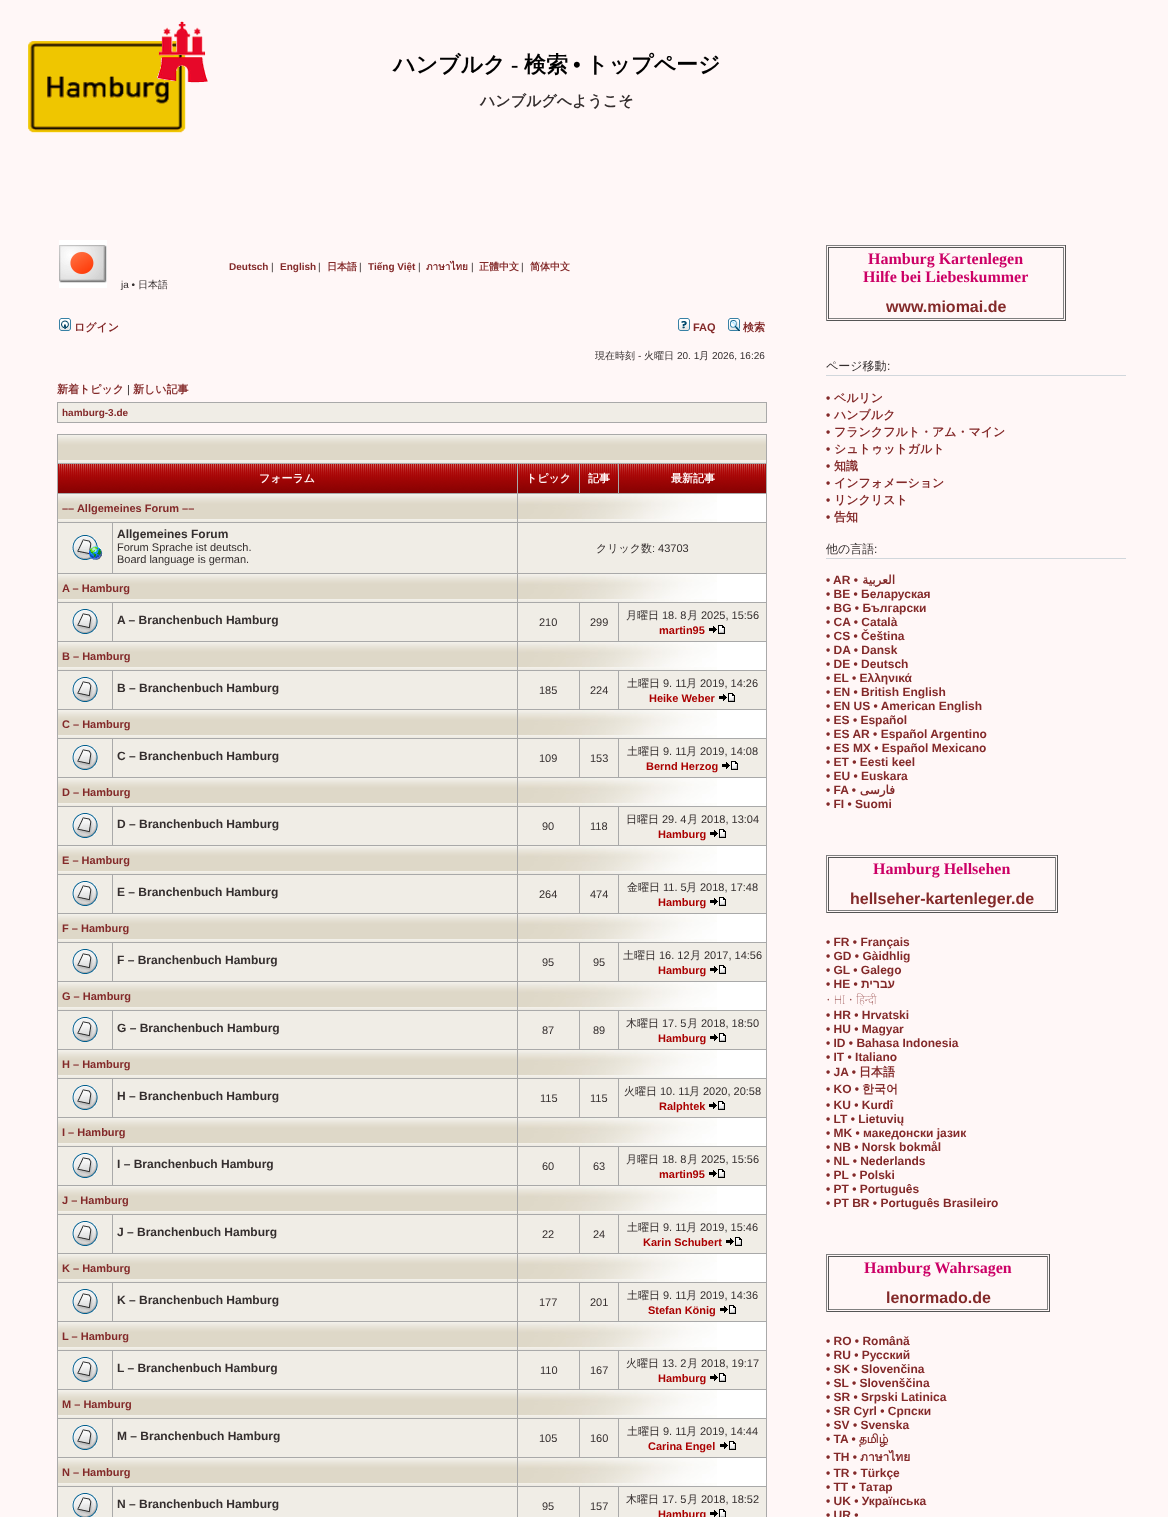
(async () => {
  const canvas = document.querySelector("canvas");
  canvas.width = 1168;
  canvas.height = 1517;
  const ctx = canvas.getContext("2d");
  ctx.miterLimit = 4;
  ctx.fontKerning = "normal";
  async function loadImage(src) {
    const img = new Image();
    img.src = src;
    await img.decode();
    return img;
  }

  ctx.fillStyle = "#fff7f7";
  ctx.fillRect(0, 0, 1168, 1517);
  ctx.drawImage(await loadImage("img/1.png"), 28, 21, 180, 112);
  ctx.drawImage(await loadImage("img/2.png"), 59, 240, 48, 48);
  ctx.drawImage(await loadImage("img/3.png"), 59, 318, 12, 13);
  ctx.drawImage(await loadImage("img/4.png"), 678, 318, 12, 13);
  ctx.drawImage(await loadImage("img/5.png"), 728, 318, 12, 13);
  for (const [x, y, w, h, color] of [
    [57, 402, 710, 21, "#a9a9a9"],
    [58, 403, 708, 19, "#f0ede6"],
    [57, 434, 710, 1083, "#a9a9a9"],
  ]) {
    ctx.fillStyle = color;
    ctx.fillRect(x, y, w, h);
  }
  ctx.drawImage(await loadImage("img/6.png"), 58, 435, 708, 28);
  ctx.drawImage(await loadImage("img/7.png"), 58, 464, 459, 29);
  ctx.drawImage(await loadImage("img/8.png"), 518, 464, 61, 29);
  ctx.drawImage(await loadImage("img/9.png"), 580, 464, 38, 29);
  ctx.drawImage(await loadImage("img/10.png"), 619, 464, 147, 29);
  ctx.drawImage(await loadImage("img/11.png"), 58, 494, 459, 28);
  ctx.fillStyle = "#ffffff";
  ctx.fillRect(717, 494, 49, 28);
  ctx.drawImage(await loadImage("img/12.png"), 518, 494, 199, 28);
  ctx.fillStyle = "#f0ede6";
  ctx.fillRect(58, 523, 54, 50);
  ctx.drawImage(await loadImage("img/13.png"), 72, 535, 31, 25);
  ctx.fillRect(113, 523, 404, 50);
  ctx.fillRect(518, 523, 248, 50);
  ctx.drawImage(await loadImage("img/11.png"), 58, 574, 459, 28);
  ctx.fillStyle = "#ffffff";
  ctx.fillRect(717, 574, 49, 28);
  ctx.drawImage(await loadImage("img/12.png"), 518, 574, 199, 28);
  ctx.fillStyle = "#f0ede6";
  ctx.fillRect(58, 603, 54, 38);
  ctx.drawImage(await loadImage("img/14.png"), 72, 609, 26, 25);
  for (const [x, y, w, h, color] of [
    [113, 603, 404, 38, "#f0ede6"],
    [518, 603, 61, 38, "#f0ede6"],
    [580, 603, 38, 38, "#f0ede6"],
    [619, 603, 147, 38, "#f0ede6"],
  ]) {
    ctx.fillStyle = color;
    ctx.fillRect(x, y, w, h);
  }
  ctx.drawImage(await loadImage("img/15.png"), 709, 625, 16, 9);
  ctx.drawImage(await loadImage("img/11.png"), 58, 642, 459, 28);
  ctx.fillStyle = "#ffffff";
  ctx.fillRect(717, 642, 49, 28);
  ctx.drawImage(await loadImage("img/12.png"), 518, 642, 199, 28);
  ctx.fillStyle = "#f0ede6";
  ctx.fillRect(58, 671, 54, 38);
  ctx.drawImage(await loadImage("img/14.png"), 72, 677, 26, 25);
  for (const [x, y, w, h, color] of [
    [113, 671, 404, 38, "#f0ede6"],
    [518, 671, 61, 38, "#f0ede6"],
    [580, 671, 38, 38, "#f0ede6"],
    [619, 671, 147, 38, "#f0ede6"],
  ]) {
    ctx.fillStyle = color;
    ctx.fillRect(x, y, w, h);
  }
  ctx.drawImage(await loadImage("img/15.png"), 719, 693, 16, 9);
  ctx.drawImage(await loadImage("img/11.png"), 58, 710, 459, 28);
  ctx.fillStyle = "#ffffff";
  ctx.fillRect(717, 710, 49, 28);
  ctx.drawImage(await loadImage("img/12.png"), 518, 710, 199, 28);
  ctx.fillStyle = "#f0ede6";
  ctx.fillRect(58, 739, 54, 38);
  ctx.drawImage(await loadImage("img/14.png"), 72, 745, 26, 25);
  for (const [x, y, w, h, color] of [
    [113, 739, 404, 38, "#f0ede6"],
    [518, 739, 61, 38, "#f0ede6"],
    [580, 739, 38, 38, "#f0ede6"],
    [619, 739, 147, 38, "#f0ede6"],
  ]) {
    ctx.fillStyle = color;
    ctx.fillRect(x, y, w, h);
  }
  ctx.drawImage(await loadImage("img/15.png"), 722, 761, 16, 9);
  ctx.drawImage(await loadImage("img/11.png"), 58, 778, 459, 28);
  ctx.fillStyle = "#ffffff";
  ctx.fillRect(717, 778, 49, 28);
  ctx.drawImage(await loadImage("img/12.png"), 518, 778, 199, 28);
  ctx.fillStyle = "#f0ede6";
  ctx.fillRect(58, 807, 54, 38);
  ctx.drawImage(await loadImage("img/14.png"), 72, 813, 26, 25);
  for (const [x, y, w, h, color] of [
    [113, 807, 404, 38, "#f0ede6"],
    [518, 807, 61, 38, "#f0ede6"],
    [580, 807, 38, 38, "#f0ede6"],
    [619, 807, 147, 38, "#f0ede6"],
  ]) {
    ctx.fillStyle = color;
    ctx.fillRect(x, y, w, h);
  }
  ctx.drawImage(await loadImage("img/15.png"), 710, 829, 16, 9);
  ctx.drawImage(await loadImage("img/11.png"), 58, 846, 459, 28);
  ctx.fillStyle = "#ffffff";
  ctx.fillRect(717, 846, 49, 28);
  ctx.drawImage(await loadImage("img/12.png"), 518, 846, 199, 28);
  ctx.fillStyle = "#f0ede6";
  ctx.fillRect(58, 875, 54, 38);
  ctx.drawImage(await loadImage("img/14.png"), 72, 881, 26, 25);
  for (const [x, y, w, h, color] of [
    [113, 875, 404, 38, "#f0ede6"],
    [518, 875, 61, 38, "#f0ede6"],
    [580, 875, 38, 38, "#f0ede6"],
    [619, 875, 147, 38, "#f0ede6"],
  ]) {
    ctx.fillStyle = color;
    ctx.fillRect(x, y, w, h);
  }
  ctx.drawImage(await loadImage("img/15.png"), 710, 897, 16, 9);
  ctx.drawImage(await loadImage("img/11.png"), 58, 914, 459, 28);
  ctx.fillStyle = "#ffffff";
  ctx.fillRect(717, 914, 49, 28);
  ctx.drawImage(await loadImage("img/12.png"), 518, 914, 199, 28);
  ctx.fillStyle = "#f0ede6";
  ctx.fillRect(58, 943, 54, 38);
  ctx.drawImage(await loadImage("img/14.png"), 72, 949, 26, 25);
  for (const [x, y, w, h, color] of [
    [113, 943, 404, 38, "#f0ede6"],
    [518, 943, 61, 38, "#f0ede6"],
    [580, 943, 38, 38, "#f0ede6"],
    [619, 943, 147, 38, "#f0ede6"],
  ]) {
    ctx.fillStyle = color;
    ctx.fillRect(x, y, w, h);
  }
  ctx.drawImage(await loadImage("img/15.png"), 710, 965, 16, 9);
  ctx.drawImage(await loadImage("img/11.png"), 58, 982, 459, 28);
  ctx.fillStyle = "#ffffff";
  ctx.fillRect(717, 982, 49, 28);
  ctx.drawImage(await loadImage("img/12.png"), 518, 982, 199, 28);
  ctx.fillStyle = "#f0ede6";
  ctx.fillRect(58, 1011, 54, 38);
  ctx.drawImage(await loadImage("img/14.png"), 72, 1017, 26, 25);
  for (const [x, y, w, h, color] of [
    [113, 1011, 404, 38, "#f0ede6"],
    [518, 1011, 61, 38, "#f0ede6"],
    [580, 1011, 38, 38, "#f0ede6"],
    [619, 1011, 147, 38, "#f0ede6"],
  ]) {
    ctx.fillStyle = color;
    ctx.fillRect(x, y, w, h);
  }
  ctx.drawImage(await loadImage("img/15.png"), 710, 1033, 16, 9);
  ctx.drawImage(await loadImage("img/11.png"), 58, 1050, 459, 28);
  ctx.fillStyle = "#ffffff";
  ctx.fillRect(717, 1050, 49, 28);
  ctx.drawImage(await loadImage("img/12.png"), 518, 1050, 199, 28);
  ctx.fillStyle = "#f0ede6";
  ctx.fillRect(58, 1079, 54, 38);
  ctx.drawImage(await loadImage("img/14.png"), 72, 1085, 26, 25);
  for (const [x, y, w, h, color] of [
    [113, 1079, 404, 38, "#f0ede6"],
    [518, 1079, 61, 38, "#f0ede6"],
    [580, 1079, 38, 38, "#f0ede6"],
    [619, 1079, 147, 38, "#f0ede6"],
  ]) {
    ctx.fillStyle = color;
    ctx.fillRect(x, y, w, h);
  }
  ctx.drawImage(await loadImage("img/15.png"), 709, 1101, 16, 9);
  ctx.drawImage(await loadImage("img/11.png"), 58, 1118, 459, 28);
  ctx.fillStyle = "#ffffff";
  ctx.fillRect(717, 1118, 49, 28);
  ctx.drawImage(await loadImage("img/12.png"), 518, 1118, 199, 28);
  ctx.fillStyle = "#f0ede6";
  ctx.fillRect(58, 1147, 54, 38);
  ctx.drawImage(await loadImage("img/14.png"), 72, 1153, 26, 25);
  for (const [x, y, w, h, color] of [
    [113, 1147, 404, 38, "#f0ede6"],
    [518, 1147, 61, 38, "#f0ede6"],
    [580, 1147, 38, 38, "#f0ede6"],
    [619, 1147, 147, 38, "#f0ede6"],
  ]) {
    ctx.fillStyle = color;
    ctx.fillRect(x, y, w, h);
  }
  ctx.drawImage(await loadImage("img/15.png"), 709, 1169, 16, 9);
  ctx.drawImage(await loadImage("img/11.png"), 58, 1186, 459, 28);
  ctx.fillStyle = "#ffffff";
  ctx.fillRect(717, 1186, 49, 28);
  ctx.drawImage(await loadImage("img/12.png"), 518, 1186, 199, 28);
  ctx.fillStyle = "#f0ede6";
  ctx.fillRect(58, 1215, 54, 38);
  ctx.drawImage(await loadImage("img/14.png"), 72, 1221, 26, 25);
  for (const [x, y, w, h, color] of [
    [113, 1215, 404, 38, "#f0ede6"],
    [518, 1215, 61, 38, "#f0ede6"],
    [580, 1215, 38, 38, "#f0ede6"],
    [619, 1215, 147, 38, "#f0ede6"],
  ]) {
    ctx.fillStyle = color;
    ctx.fillRect(x, y, w, h);
  }
  ctx.drawImage(await loadImage("img/15.png"), 726, 1237, 16, 9);
  ctx.drawImage(await loadImage("img/11.png"), 58, 1254, 459, 28);
  ctx.fillStyle = "#ffffff";
  ctx.fillRect(717, 1254, 49, 28);
  ctx.drawImage(await loadImage("img/12.png"), 518, 1254, 199, 28);
  ctx.fillStyle = "#f0ede6";
  ctx.fillRect(58, 1283, 54, 38);
  ctx.drawImage(await loadImage("img/14.png"), 72, 1289, 26, 25);
  for (const [x, y, w, h, color] of [
    [113, 1283, 404, 38, "#f0ede6"],
    [518, 1283, 61, 38, "#f0ede6"],
    [580, 1283, 38, 38, "#f0ede6"],
    [619, 1283, 147, 38, "#f0ede6"],
  ]) {
    ctx.fillStyle = color;
    ctx.fillRect(x, y, w, h);
  }
  ctx.drawImage(await loadImage("img/15.png"), 720, 1305, 16, 9);
  ctx.drawImage(await loadImage("img/11.png"), 58, 1322, 459, 28);
  ctx.fillStyle = "#ffffff";
  ctx.fillRect(717, 1322, 49, 28);
  ctx.drawImage(await loadImage("img/12.png"), 518, 1322, 199, 28);
  ctx.fillStyle = "#f0ede6";
  ctx.fillRect(58, 1351, 54, 38);
  ctx.drawImage(await loadImage("img/14.png"), 72, 1357, 26, 25);
  for (const [x, y, w, h, color] of [
    [113, 1351, 404, 38, "#f0ede6"],
    [518, 1351, 61, 38, "#f0ede6"],
    [580, 1351, 38, 38, "#f0ede6"],
    [619, 1351, 147, 38, "#f0ede6"],
  ]) {
    ctx.fillStyle = color;
    ctx.fillRect(x, y, w, h);
  }
  ctx.drawImage(await loadImage("img/15.png"), 710, 1373, 16, 9);
  ctx.drawImage(await loadImage("img/11.png"), 58, 1390, 459, 28);
  ctx.fillStyle = "#ffffff";
  ctx.fillRect(717, 1390, 49, 28);
  ctx.drawImage(await loadImage("img/12.png"), 518, 1390, 199, 28);
  ctx.fillStyle = "#f0ede6";
  ctx.fillRect(58, 1419, 54, 38);
  ctx.drawImage(await loadImage("img/14.png"), 72, 1425, 26, 25);
  for (const [x, y, w, h, color] of [
    [113, 1419, 404, 38, "#f0ede6"],
    [518, 1419, 61, 38, "#f0ede6"],
    [580, 1419, 38, 38, "#f0ede6"],
    [619, 1419, 147, 38, "#f0ede6"],
  ]) {
    ctx.fillStyle = color;
    ctx.fillRect(x, y, w, h);
  }
  ctx.drawImage(await loadImage("img/15.png"), 720, 1441, 16, 9);
  ctx.drawImage(await loadImage("img/11.png"), 58, 1458, 459, 28);
  ctx.fillStyle = "#ffffff";
  ctx.fillRect(717, 1458, 49, 28);
  ctx.drawImage(await loadImage("img/12.png"), 518, 1458, 199, 28);
  ctx.fillStyle = "#f0ede6";
  ctx.fillRect(58, 1487, 54, 30);
  ctx.drawImage(await loadImage("img/16.png"), 72, 1493, 26, 24);
  for (const [x, y, w, h, color] of [
    [113, 1487, 404, 30, "#f0ede6"],
    [518, 1487, 61, 30, "#f0ede6"],
    [580, 1487, 38, 30, "#f0ede6"],
    [619, 1487, 147, 30, "#f0ede6"],
  ]) {
    ctx.fillStyle = color;
    ctx.fillRect(x, y, w, h);
  }
  ctx.drawImage(await loadImage("img/17.png"), 710, 1509, 16, 8);
  for (const [x, y, w, h, color] of [
    [826, 245, 240, 1, "#808080"],
    [1065, 245, 1, 76, "#555555"],
    [826, 320, 240, 1, "#555555"],
    [826, 245, 1, 76, "#808080"],
    [828, 247, 236, 1, "#555555"],
    [1063, 247, 1, 72, "#808080"],
    [828, 318, 236, 1, "#808080"],
    [828, 247, 1, 72, "#555555"],
    [826, 375, 300, 1, "#d1d7dc"],
    [826, 558, 300, 1, "#d1d7dc"],
    [826, 855, 232, 1, "#808080"],
    [1057, 855, 1, 58, "#555555"],
    [826, 912, 232, 1, "#555555"],
    [826, 855, 1, 58, "#808080"],
    [828, 857, 228, 1, "#555555"],
    [1055, 857, 1, 54, "#808080"],
    [828, 910, 228, 1, "#808080"],
    [828, 857, 1, 54, "#555555"],
    [826, 1254, 224, 1, "#808080"],
    [1049, 1254, 1, 58, "#555555"],
    [826, 1311, 224, 1, "#555555"],
    [826, 1254, 1, 58, "#808080"],
    [828, 1256, 220, 1, "#555555"],
    [1047, 1256, 1, 54, "#808080"],
    [828, 1309, 220, 1, "#808080"],
    [828, 1256, 1, 54, "#555555"],
  ]) {
    ctx.fillStyle = color;
    ctx.fillRect(x, y, w, h);
  }
  ctx.font = "bold 22px WenQuanYi Zen Hei";
  ctx.fillStyle = "#000000";
  ctx.fillText("ハンブルク", 393, 72);
  ctx.font = "bold 22px Liberation Serif";
  ctx.fillText("-", 511, 72);
  ctx.font = "bold 22px WenQuanYi Zen Hei";
  ctx.fillText("検索", 524, 72);
  ctx.font = "bold 22px Liberation Serif";
  ctx.fillText("•", 573, 72);
  ctx.font = "bold 22px WenQuanYi Zen Hei";
  ctx.fillText("トップページ", 586, 72);
  ctx.font = "bold 15px WenQuanYi Zen Hei";
  ctx.fillStyle = "#342e2e";
  ctx.fillText("ハンブルグへようこそ", 480, 106);
  ctx.font = "bold 10px Liberation Sans";
  ctx.fillStyle = "#832929";
  ctx.fillText("Deutsch", 229, 270);
  ctx.font = "10px Liberation Sans";
  ctx.fillStyle = "#342e2e";
  ctx.fillText("|", 271, 270);
  ctx.font = "bold 10px Liberation Sans";
  ctx.fillStyle = "#832929";
  ctx.fillText("English", 280, 270);
  ctx.font = "10px Liberation Sans";
  ctx.fillStyle = "#342e2e";
  ctx.fillText("|", 318, 270);
  ctx.font = "bold 10px WenQuanYi Zen Hei";
  ctx.fillStyle = "#832929";
  ctx.fillText("日本語", 327, 270);
  ctx.font = "10px Liberation Sans";
  ctx.fillStyle = "#342e2e";
  ctx.fillText("|", 359, 270);
  ctx.font = "bold 10px Liberation Sans";
  ctx.fillStyle = "#832929";
  ctx.fillText("Tiếng Việt", 368, 270);
  ctx.font = "10px Liberation Sans";
  ctx.fillStyle = "#342e2e";
  ctx.fillText("|", 418, 270);
  ctx.font = "bold 10px Loma";
  ctx.fillStyle = "#832929";
  ctx.fillText("ภาษาไทย", 426, 270);
  ctx.font = "10px Liberation Sans";
  ctx.fillStyle = "#342e2e";
  ctx.fillText("|", 471, 270);
  ctx.font = "bold 10px WenQuanYi Zen Hei";
  ctx.fillStyle = "#832929";
  ctx.fillText("正體中文", 479, 270);
  ctx.font = "10px Liberation Sans";
  ctx.fillStyle = "#342e2e";
  ctx.fillText("|", 521, 270);
  ctx.font = "bold 10px WenQuanYi Zen Hei";
  ctx.fillStyle = "#832929";
  ctx.fillText("简体中文", 530, 270);
  ctx.font = "10px Liberation Sans";
  ctx.fillStyle = "#342e2e";
  ctx.fillText("ja •", 121, 288);
  ctx.font = "500 10px WenQuanYi Zen Hei";
  ctx.fillText("日本語", 138, 288);
  ctx.font = "bold 11px WenQuanYi Zen Hei";
  ctx.fillStyle = "#832929";
  ctx.fillText("ログイン", 74, 331);
  ctx.font = "bold 11px Liberation Sans";
  ctx.fillText("FAQ", 693, 331);
  ctx.font = "bold 11px WenQuanYi Zen Hei";
  ctx.fillText("検索", 743, 331);
  ctx.font = "500 10px WenQuanYi Zen Hei";
  ctx.fillStyle = "#342e2e";
  ctx.fillText("現在時刻", 595, 359);
  ctx.font = "10px Liberation Sans";
  ctx.fillText("-", 638, 359);
  ctx.font = "500 10px WenQuanYi Zen Hei";
  ctx.fillText("火曜日", 644, 359);
  ctx.font = "10px Liberation Sans";
  ctx.fillText("20. 1", 677, 359);
  ctx.font = "500 10px WenQuanYi Zen Hei";
  ctx.fillText("月", 699, 359);
  ctx.font = "10px Liberation Sans";
  ctx.fillText("2026, 16:26", 712, 359);
  ctx.font = "bold 11px WenQuanYi Zen Hei";
  ctx.fillStyle = "#832929";
  ctx.fillText("新着トピック", 57, 393);
  ctx.font = "11px Liberation Sans";
  ctx.fillStyle = "#342e2e";
  ctx.fillText("|", 127, 393);
  ctx.font = "bold 11px WenQuanYi Zen Hei";
  ctx.fillStyle = "#832929";
  ctx.fillText("新しい記事", 133, 393);
  ctx.font = "bold 10px Liberation Sans";
  ctx.fillText("hamburg-3.de", 62, 416);
  ctx.font = "bold 11px WenQuanYi Zen Hei";
  ctx.fillStyle = "#fff7f7";
  for (const [text, x, y] of [
    ["フォーラム", 259, 482],
    ["トピック", 526, 482],
    ["記事", 588, 482],
    ["最新記事", 671, 482],
  ]) {
    ctx.fillText(text, x, y);
  }
  ctx.font = "bold 11px Liberation Sans";
  ctx.fillStyle = "#832929";
  ctx.fillText("–– Allgemeines Forum ––", 62, 512);
  ctx.font = "bold 12px Liberation Sans";
  ctx.fillStyle = "#342e2e";
  ctx.fillText("Allgemeines Forum", 117, 538);
  ctx.font = "11px Liberation Sans";
  ctx.fillText("Forum Sprache ist deutsch.", 117, 551);
  ctx.fillText("Board language is german.", 117, 563);
  ctx.font = "500 11px WenQuanYi Zen Hei";
  ctx.fillText("クリック数", 596, 552);
  ctx.font = "11px Liberation Sans";
  ctx.fillText(": 43703", 652, 552);
  ctx.font = "bold 11px Liberation Sans";
  ctx.fillStyle = "#832929";
  ctx.fillText("A – Hamburg", 62, 592);
  ctx.font = "bold 12px Liberation Sans";
  ctx.fillStyle = "#342e2e";
  ctx.fillText("A – Branchenbuch Hamburg", 117, 624);
  ctx.font = "11px Liberation Sans";
  ctx.fillText("210", 539, 626);
  ctx.fillText("299", 590, 626);
  ctx.font = "500 11px WenQuanYi Zen Hei";
  ctx.fillText("月曜日", 626, 619);
  ctx.font = "11px Liberation Sans";
  ctx.fillText("18. 8", 662, 619);
  ctx.font = "500 11px WenQuanYi Zen Hei";
  ctx.fillText("月", 687, 619);
  ctx.font = "11px Liberation Sans";
  ctx.fillText("2025, 15:56", 701, 619);
  ctx.font = "bold 11px Liberation Sans";
  ctx.fillStyle = "#aa0000";
  ctx.fillText("martin95", 659, 634);
  ctx.fillStyle = "#832929";
  ctx.fillText("B – Hamburg", 62, 660);
  ctx.font = "bold 12px Liberation Sans";
  ctx.fillStyle = "#342e2e";
  ctx.fillText("B – Branchenbuch Hamburg", 117, 692);
  ctx.font = "11px Liberation Sans";
  ctx.fillText("185", 539, 694);
  ctx.fillText("224", 590, 694);
  ctx.font = "500 11px WenQuanYi Zen Hei";
  ctx.fillText("土曜日", 627, 687);
  ctx.font = "11px Liberation Sans";
  ctx.fillText("9. 11", 663, 687);
  ctx.font = "500 11px WenQuanYi Zen Hei";
  ctx.fillText("月", 686, 687);
  ctx.font = "11px Liberation Sans";
  ctx.fillText("2019, 14:26", 700, 687);
  ctx.font = "bold 11px Liberation Sans";
  ctx.fillStyle = "#aa0000";
  ctx.fillText("Heike Weber", 649, 702);
  ctx.fillStyle = "#832929";
  ctx.fillText("C – Hamburg", 62, 728);
  ctx.font = "bold 12px Liberation Sans";
  ctx.fillStyle = "#342e2e";
  ctx.fillText("C – Branchenbuch Hamburg", 117, 760);
  ctx.font = "11px Liberation Sans";
  ctx.fillText("109", 539, 762);
  ctx.fillText("153", 590, 762);
  ctx.font = "500 11px WenQuanYi Zen Hei";
  ctx.fillText("土曜日", 627, 755);
  ctx.font = "11px Liberation Sans";
  ctx.fillText("9. 11", 663, 755);
  ctx.font = "500 11px WenQuanYi Zen Hei";
  ctx.fillText("月", 686, 755);
  ctx.font = "11px Liberation Sans";
  ctx.fillText("2019, 14:08", 700, 755);
  ctx.font = "bold 11px Liberation Sans";
  ctx.fillStyle = "#aa0000";
  ctx.fillText("Bernd Herzog", 646, 770);
  ctx.fillStyle = "#832929";
  ctx.fillText("D – Hamburg", 62, 796);
  ctx.font = "bold 12px Liberation Sans";
  ctx.fillStyle = "#342e2e";
  ctx.fillText("D – Branchenbuch Hamburg", 117, 828);
  ctx.font = "11px Liberation Sans";
  ctx.fillText("90", 542, 830);
  ctx.fillText("118", 590, 830);
  ctx.font = "500 11px WenQuanYi Zen Hei";
  ctx.fillText("日曜日", 626, 823);
  ctx.font = "11px Liberation Sans";
  ctx.fillText("29. 4", 662, 823);
  ctx.font = "500 11px WenQuanYi Zen Hei";
  ctx.fillText("月", 687, 823);
  ctx.font = "11px Liberation Sans";
  ctx.fillText("2018, 13:04", 701, 823);
  ctx.font = "bold 11px Liberation Sans";
  ctx.fillStyle = "#aa0000";
  ctx.fillText("Hamburg", 658, 838);
  ctx.fillStyle = "#832929";
  ctx.fillText("E – Hamburg", 62, 864);
  ctx.font = "bold 12px Liberation Sans";
  ctx.fillStyle = "#342e2e";
  ctx.fillText("E – Branchenbuch Hamburg", 117, 896);
  ctx.font = "11px Liberation Sans";
  ctx.fillText("264", 539, 898);
  ctx.fillText("474", 590, 898);
  ctx.font = "500 11px WenQuanYi Zen Hei";
  ctx.fillText("金曜日", 627, 891);
  ctx.font = "11px Liberation Sans";
  ctx.fillText("11. 5", 663, 891);
  ctx.font = "500 11px WenQuanYi Zen Hei";
  ctx.fillText("月", 686, 891);
  ctx.font = "11px Liberation Sans";
  ctx.fillText("2018, 17:48", 700, 891);
  ctx.font = "bold 11px Liberation Sans";
  ctx.fillStyle = "#aa0000";
  ctx.fillText("Hamburg", 658, 906);
  ctx.fillStyle = "#832929";
  ctx.fillText("F – Hamburg", 62, 932);
  ctx.font = "bold 12px Liberation Sans";
  ctx.fillStyle = "#342e2e";
  ctx.fillText("F – Branchenbuch Hamburg", 117, 964);
  ctx.font = "11px Liberation Sans";
  ctx.fillText("95", 542, 966);
  ctx.fillText("95", 593, 966);
  ctx.font = "500 11px WenQuanYi Zen Hei";
  ctx.fillText("土曜日", 623, 959);
  ctx.font = "11px Liberation Sans";
  ctx.fillText("16. 12", 659, 959);
  ctx.font = "500 11px WenQuanYi Zen Hei";
  ctx.fillText("月", 690, 959);
  ctx.font = "11px Liberation Sans";
  ctx.fillText("2017, 14:56", 704, 959);
  ctx.font = "bold 11px Liberation Sans";
  ctx.fillStyle = "#aa0000";
  ctx.fillText("Hamburg", 658, 974);
  ctx.fillStyle = "#832929";
  ctx.fillText("G – Hamburg", 62, 1000);
  ctx.font = "bold 12px Liberation Sans";
  ctx.fillStyle = "#342e2e";
  ctx.fillText("G – Branchenbuch Hamburg", 117, 1032);
  ctx.font = "11px Liberation Sans";
  ctx.fillText("87", 542, 1034);
  ctx.fillText("89", 593, 1034);
  ctx.font = "500 11px WenQuanYi Zen Hei";
  ctx.fillText("木曜日", 626, 1027);
  ctx.font = "11px Liberation Sans";
  ctx.fillText("17. 5", 662, 1027);
  ctx.font = "500 11px WenQuanYi Zen Hei";
  ctx.fillText("月", 687, 1027);
  ctx.font = "11px Liberation Sans";
  ctx.fillText("2018, 18:50", 701, 1027);
  ctx.font = "bold 11px Liberation Sans";
  ctx.fillStyle = "#aa0000";
  ctx.fillText("Hamburg", 658, 1042);
  ctx.fillStyle = "#832929";
  ctx.fillText("H – Hamburg", 62, 1068);
  ctx.font = "bold 12px Liberation Sans";
  ctx.fillStyle = "#342e2e";
  ctx.fillText("H – Branchenbuch Hamburg", 117, 1100);
  ctx.font = "11px Liberation Sans";
  ctx.fillText("115", 540, 1102);
  ctx.fillText("115", 590, 1102);
  ctx.font = "500 11px WenQuanYi Zen Hei";
  ctx.fillText("火曜日", 624, 1095);
  ctx.font = "11px Liberation Sans";
  ctx.fillText("10. 11", 660, 1095);
  ctx.font = "500 11px WenQuanYi Zen Hei";
  ctx.fillText("月", 689, 1095);
  ctx.font = "11px Liberation Sans";
  ctx.fillText("2020, 20:58", 703, 1095);
  ctx.font = "bold 11px Liberation Sans";
  ctx.fillStyle = "#aa0000";
  ctx.fillText("Ralphtek", 659, 1110);
  ctx.fillStyle = "#832929";
  ctx.fillText("I – Hamburg", 62, 1136);
  ctx.font = "bold 12px Liberation Sans";
  ctx.fillStyle = "#342e2e";
  ctx.fillText("I – Branchenbuch Hamburg", 117, 1168);
  ctx.font = "11px Liberation Sans";
  ctx.fillText("60", 542, 1170);
  ctx.fillText("63", 593, 1170);
  ctx.font = "500 11px WenQuanYi Zen Hei";
  ctx.fillText("月曜日", 626, 1163);
  ctx.font = "11px Liberation Sans";
  ctx.fillText("18. 8", 662, 1163);
  ctx.font = "500 11px WenQuanYi Zen Hei";
  ctx.fillText("月", 687, 1163);
  ctx.font = "11px Liberation Sans";
  ctx.fillText("2025, 15:56", 701, 1163);
  ctx.font = "bold 11px Liberation Sans";
  ctx.fillStyle = "#aa0000";
  ctx.fillText("martin95", 659, 1178);
  ctx.fillStyle = "#832929";
  ctx.fillText("J – Hamburg", 62, 1204);
  ctx.font = "bold 12px Liberation Sans";
  ctx.fillStyle = "#342e2e";
  ctx.fillText("J – Branchenbuch Hamburg", 117, 1236);
  ctx.font = "11px Liberation Sans";
  ctx.fillText("22", 542, 1238);
  ctx.fillText("24", 593, 1238);
  ctx.font = "500 11px WenQuanYi Zen Hei";
  ctx.fillText("土曜日", 627, 1231);
  ctx.font = "11px Liberation Sans";
  ctx.fillText("9. 11", 663, 1231);
  ctx.font = "500 11px WenQuanYi Zen Hei";
  ctx.fillText("月", 686, 1231);
  ctx.font = "11px Liberation Sans";
  ctx.fillText("2019, 15:46", 700, 1231);
  ctx.font = "bold 11px Liberation Sans";
  ctx.fillStyle = "#aa0000";
  ctx.fillText("Karin Schubert", 643, 1246);
  ctx.fillStyle = "#832929";
  ctx.fillText("K – Hamburg", 62, 1272);
  ctx.font = "bold 12px Liberation Sans";
  ctx.fillStyle = "#342e2e";
  ctx.fillText("K – Branchenbuch Hamburg", 117, 1304);
  ctx.font = "11px Liberation Sans";
  ctx.fillText("177", 539, 1306);
  ctx.fillText("201", 590, 1306);
  ctx.font = "500 11px WenQuanYi Zen Hei";
  ctx.fillText("土曜日", 627, 1299);
  ctx.font = "11px Liberation Sans";
  ctx.fillText("9. 11", 663, 1299);
  ctx.font = "500 11px WenQuanYi Zen Hei";
  ctx.fillText("月", 686, 1299);
  ctx.font = "11px Liberation Sans";
  ctx.fillText("2019, 14:36", 700, 1299);
  ctx.font = "bold 11px Liberation Sans";
  ctx.fillStyle = "#aa0000";
  ctx.fillText("Stefan König", 648, 1314);
  ctx.fillStyle = "#832929";
  ctx.fillText("L – Hamburg", 62, 1340);
  ctx.font = "bold 12px Liberation Sans";
  ctx.fillStyle = "#342e2e";
  ctx.fillText("L – Branchenbuch Hamburg", 117, 1372);
  ctx.font = "11px Liberation Sans";
  ctx.fillText("110", 540, 1374);
  ctx.fillText("167", 590, 1374);
  ctx.font = "500 11px WenQuanYi Zen Hei";
  ctx.fillText("火曜日", 626, 1367);
  ctx.font = "11px Liberation Sans";
  ctx.fillText("13. 2", 662, 1367);
  ctx.font = "500 11px WenQuanYi Zen Hei";
  ctx.fillText("月", 687, 1367);
  ctx.font = "11px Liberation Sans";
  ctx.fillText("2018, 19:17", 701, 1367);
  ctx.font = "bold 11px Liberation Sans";
  ctx.fillStyle = "#aa0000";
  ctx.fillText("Hamburg", 658, 1382);
  ctx.fillStyle = "#832929";
  ctx.fillText("M – Hamburg", 62, 1408);
  ctx.font = "bold 12px Liberation Sans";
  ctx.fillStyle = "#342e2e";
  ctx.fillText("M – Branchenbuch Hamburg", 117, 1440);
  ctx.font = "11px Liberation Sans";
  ctx.fillText("105", 539, 1442);
  ctx.fillText("160", 590, 1442);
  ctx.font = "500 11px WenQuanYi Zen Hei";
  ctx.fillText("土曜日", 627, 1435);
  ctx.font = "11px Liberation Sans";
  ctx.fillText("9. 11", 663, 1435);
  ctx.font = "500 11px WenQuanYi Zen Hei";
  ctx.fillText("月", 686, 1435);
  ctx.font = "11px Liberation Sans";
  ctx.fillText("2019, 14:44", 700, 1435);
  ctx.font = "bold 11px Liberation Sans";
  ctx.fillStyle = "#aa0000";
  ctx.fillText("Carina Engel", 648, 1450);
  ctx.fillStyle = "#832929";
  ctx.fillText("N – Hamburg", 62, 1476);
  ctx.font = "bold 12px Liberation Sans";
  ctx.fillStyle = "#342e2e";
  ctx.fillText("N – Branchenbuch Hamburg", 117, 1508);
  ctx.font = "11px Liberation Sans";
  ctx.fillText("95", 542, 1510);
  ctx.fillText("157", 590, 1510);
  ctx.font = "500 11px WenQuanYi Zen Hei";
  ctx.fillText("木曜日", 626, 1503);
  ctx.font = "11px Liberation Sans";
  ctx.fillText("17. 5", 662, 1503);
  ctx.font = "500 11px WenQuanYi Zen Hei";
  ctx.fillText("月", 687, 1503);
  ctx.font = "11px Liberation Sans";
  ctx.fillText("2018, 18:52", 701, 1503);
  ctx.font = "bold 11px Liberation Sans";
  ctx.fillStyle = "#aa0000";
  ctx.fillText("Hamburg", 658, 1518);
  ctx.font = "bold 16px Liberation Serif";
  ctx.fillStyle = "#cc0066";
  ctx.fillText("Hamburg Kartenlegen", 868, 264);
  ctx.fillText("Hilfe bei Liebeskummer", 863, 282);
  ctx.font = "bold 16px Liberation Sans";
  ctx.fillStyle = "#832929";
  ctx.fillText("www.miomai.de", 886, 312);
  ctx.font = "500 12px WenQuanYi Zen Hei";
  ctx.fillStyle = "#342e2e";
  ctx.fillText("ページ移動", 826, 370);
  ctx.font = "12px Liberation Sans";
  ctx.fillText(":", 887, 370);
  ctx.font = "bold 12px Liberation Sans";
  ctx.fillStyle = "#832929";
  ctx.fillText("•", 826, 402);
  ctx.font = "bold 12px WenQuanYi Zen Hei";
  ctx.fillText("ベルリン", 834, 402);
  ctx.font = "bold 12px Liberation Sans";
  ctx.fillText("•", 826, 419);
  ctx.font = "bold 12px WenQuanYi Zen Hei";
  ctx.fillText("ハンブルク", 834, 419);
  ctx.font = "bold 12px Liberation Sans";
  ctx.fillText("•", 826, 436);
  ctx.font = "bold 12px WenQuanYi Zen Hei";
  ctx.fillText("フランクフルト・アム・マイン", 834, 436);
  ctx.font = "bold 12px Liberation Sans";
  ctx.fillText("•", 826, 453);
  ctx.font = "bold 12px WenQuanYi Zen Hei";
  ctx.fillText("シュトゥットガルト", 834, 453);
  ctx.font = "bold 12px Liberation Sans";
  ctx.fillText("•", 826, 470);
  ctx.font = "bold 12px WenQuanYi Zen Hei";
  ctx.fillText("知識", 834, 470);
  ctx.font = "bold 12px Liberation Sans";
  ctx.fillText("•", 826, 487);
  ctx.font = "bold 12px WenQuanYi Zen Hei";
  ctx.fillText("インフォメーション", 834, 487);
  ctx.font = "bold 12px Liberation Sans";
  ctx.fillText("•", 826, 504);
  ctx.font = "bold 12px WenQuanYi Zen Hei";
  ctx.fillText("リンクリスト", 834, 504);
  ctx.font = "bold 12px Liberation Sans";
  ctx.fillText("•", 826, 521);
  ctx.font = "bold 12px WenQuanYi Zen Hei";
  ctx.fillText("告知", 834, 521);
  ctx.font = "500 12px WenQuanYi Zen Hei";
  ctx.fillStyle = "#342e2e";
  ctx.fillText("他の言語", 826, 553);
  ctx.font = "12px Liberation Sans";
  ctx.fillText(":", 874, 553);
  ctx.font = "bold 12px Liberation Sans";
  ctx.fillStyle = "#832929";
  ctx.fillText("• AR •", 826, 584);
  ctx.direction = "rtl";
  ctx.font = "bold 12px DejaVu Sans";
  ctx.fillText("العربية", 895, 584);
  ctx.direction = "ltr";
  ctx.font = "bold 12px Liberation Sans";
  for (const [text, x, y] of [
    ["• BE • Беларуская", 826, 598],
    ["• BG • Български", 826, 612],
    ["• CA • Català", 826, 626],
    ["• CS • Čeština", 826, 640],
    ["• DA • Dansk", 826, 654],
    ["• DE • Deutsch", 826, 668],
    ["• EL • Ελληνικά", 826, 682],
    ["• EN • British English", 826, 696],
    ["• EN US • American English", 826, 710],
    ["• ES • Español", 826, 724],
    ["• ES AR • Español Argentino", 826, 738],
    ["• ES MX • Español Mexicano", 826, 752],
    ["• ET • Eesti keel", 826, 766],
    ["• EU • Euskara", 826, 780],
    ["• FA •", 826, 794],
  ]) {
    ctx.fillText(text, x, y);
  }
  ctx.direction = "rtl";
  ctx.font = "bold 12px DejaVu Sans";
  ctx.fillText("فارسی", 895, 794);
  ctx.direction = "ltr";
  ctx.font = "bold 12px Liberation Sans";
  ctx.fillText("• FI • Suomi", 826, 808);
  ctx.font = "bold 16px Liberation Serif";
  ctx.fillStyle = "#cc0066";
  ctx.fillText("Hamburg Hellsehen", 873, 874);
  ctx.font = "bold 16px Liberation Sans";
  ctx.fillStyle = "#832929";
  ctx.fillText("hellseher-kartenleger.de", 850, 904);
  ctx.font = "bold 12px Liberation Sans";
  for (const [text, x, y] of [
    ["• FR • Français", 826, 946],
    ["• GD • Gàidhlig", 826, 960],
    ["• GL • Galego", 826, 974],
    ["• HE •", 826, 988],
  ]) {
    ctx.fillText(text, x, y);
  }
  ctx.direction = "rtl";
  ctx.fillText("עברית", 895, 988);
  ctx.direction = "ltr";
  ctx.font = "100 12px Noto Sans";
  ctx.fillText("• HI • हिन्दी", 826, 1004);
  ctx.font = "bold 12px Liberation Sans";
  for (const [text, x, y] of [
    ["• HR • Hrvatski", 826, 1019],
    ["• HU • Magyar", 826, 1033],
    ["• ID • Bahasa Indonesia", 826, 1047],
    ["• IT • Italiano", 826, 1061],
    ["• JA •", 826, 1076],
  ]) {
    ctx.fillText(text, x, y);
  }
  ctx.font = "bold 12px WenQuanYi Zen Hei";
  ctx.fillText("日本語", 859, 1076);
  ctx.font = "bold 12px Liberation Sans";
  ctx.fillText("• KO •", 826, 1093);
  ctx.font = "bold 12px WenQuanYi Zen Hei";
  ctx.fillText("한국어", 862, 1093);
  ctx.font = "bold 12px Liberation Sans";
  for (const [text, x, y] of [
    ["• KU • Kurdî", 826, 1109],
    ["• LT • Lietuvių", 826, 1123],
    ["• MK • македонски јазик", 826, 1137],
    ["• NB • Norsk bokmål", 826, 1151],
    ["• NL • Nederlands", 826, 1165],
    ["• PL • Polski", 826, 1179],
    ["• PT • Português", 826, 1193],
    ["• PT BR • Português Brasileiro", 826, 1207],
  ]) {
    ctx.fillText(text, x, y);
  }
  ctx.font = "bold 16px Liberation Serif";
  ctx.fillStyle = "#cc0066";
  ctx.fillText("Hamburg Wahrsagen", 864, 1273);
  ctx.font = "bold 16px Liberation Sans";
  ctx.fillStyle = "#832929";
  ctx.fillText("lenormado.de", 886, 1303);
  ctx.font = "bold 12px Liberation Sans";
  for (const [text, x, y] of [
    ["• RO • Română", 826, 1345],
    ["• RU • Русский", 826, 1359],
    ["• SK • Slovenčina", 826, 1373],
    ["• SL • Slovenščina", 826, 1387],
    ["• SR • Srpski Latinica", 826, 1401],
    ["• SR Cyrl • Српски", 826, 1415],
    ["• SV • Svenska", 826, 1429],
    ["• TA •", 826, 1443],
  ]) {
    ctx.fillText(text, x, y);
  }
  ctx.font = "bold 12px Lohit Tamil";
  ctx.fillText("தமிழ்", 859, 1443);
  ctx.font = "bold 12px Liberation Sans";
  ctx.fillText("• TH •", 826, 1461);
  ctx.font = "bold 12px Loma";
  ctx.fillText("ภาษาไทย", 860, 1461);
  ctx.font = "bold 12px Liberation Sans";
  for (const [text, x, y] of [
    ["• TR • Türkçe", 826, 1477],
    ["• TT • Татар", 826, 1491],
    ["• UK • Українська", 826, 1505],
    ["• UR •", 826, 1519],
  ]) {
    ctx.fillText(text, x, y);
  }
})();
